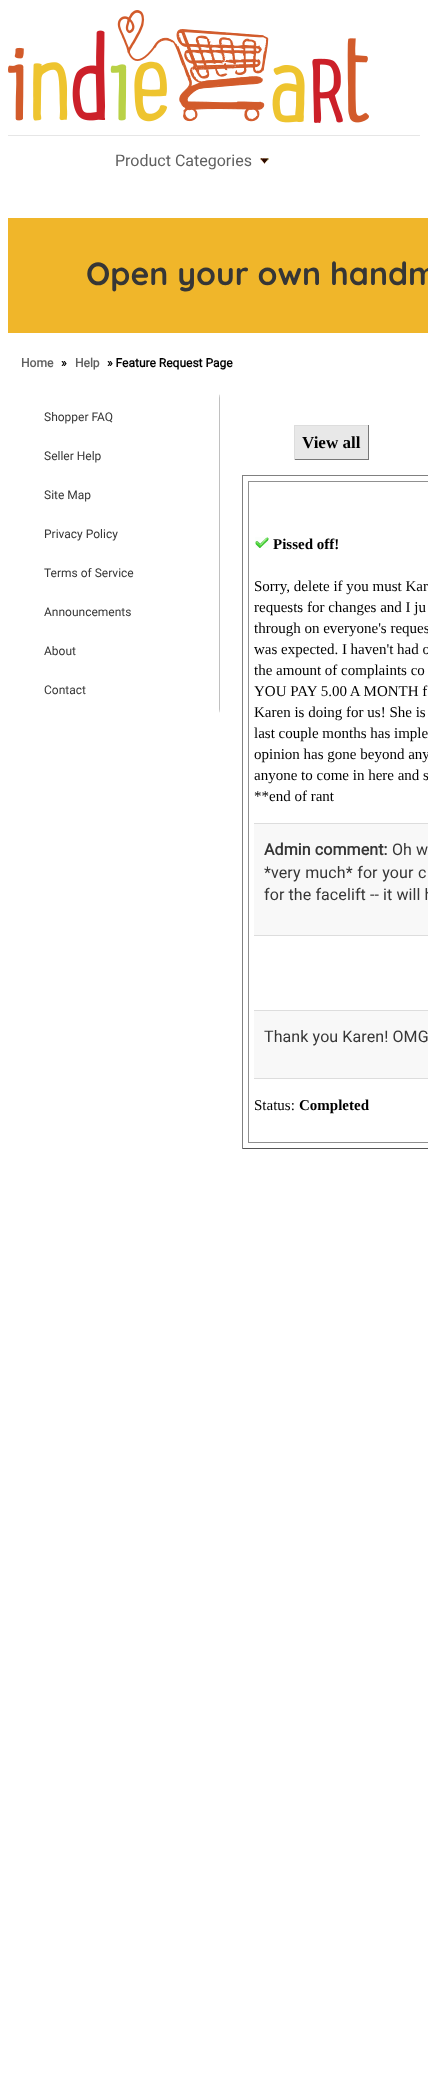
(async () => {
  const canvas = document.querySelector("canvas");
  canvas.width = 428;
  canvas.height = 2080;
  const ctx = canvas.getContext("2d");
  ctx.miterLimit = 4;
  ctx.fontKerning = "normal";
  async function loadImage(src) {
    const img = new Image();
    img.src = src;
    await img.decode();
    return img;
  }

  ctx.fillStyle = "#ffffff";
  ctx.fillRect(0, 0, 428, 2080);
  ctx.drawImage(await loadImage("img/1.png"), 8, 10, 361, 113);
  ctx.fillStyle = "#e6e6e6";
  ctx.fillRect(8, 135, 412, 1);
  ctx.drawImage(await loadImage("img/2.png"), 260, 158, 9, 6);
  ctx.fillStyle = "#f0b62a";
  ctx.fillRect(8, 218, 420, 115);
  ctx.save();
  ctx.beginPath();
  ctx.roundRect(15, 390, 205, 327, 8);
  ctx.clip();
  ctx.fillStyle = "#c0c0c0";
  ctx.fillRect(219, 390, 1, 327);
  ctx.restore();
  for (const [x, y, w, h, color] of [
    [295, 426, 73, 33, "#e8e8e8"],
    [294, 425, 75, 1, "#dddddd"],
    [368, 425, 1, 35, "#777777"],
    [294, 459, 75, 1, "#777777"],
    [294, 425, 1, 35, "#dddddd"],
    [242, 475, 186, 1, "#808080"],
    [242, 1148, 186, 1, "#555555"],
    [242, 475, 1, 674, "#808080"],
  ]) {
    ctx.fillStyle = color;
    ctx.fillRect(x, y, w, h);
  }
  ctx.strokeStyle = "#909090";
  ctx.strokeRect(248.5, 481.5, 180, 661);
  ctx.drawImage(await loadImage("img/3.png"), 255, 537, 14, 11);
  for (const [x, y, w, h, color] of [
    [254, 824, 174, 111, "#f8f8f8"],
    [254, 823, 174, 1, "#dddddd"],
    [254, 935, 174, 1, "#dddddd"],
    [254, 1011, 174, 67, "#f8f8f8"],
    [254, 1010, 174, 1, "#dddddd"],
    [254, 1078, 174, 1, "#dddddd"],
  ]) {
    ctx.fillStyle = color;
    ctx.fillRect(x, y, w, h);
  }
  ctx.font = "16px Roboto";
  ctx.fillStyle = "#606060";
  ctx.fillText("Product Categories", 115, 166);
  ctx.font = "300 32px Quicksand";
  ctx.fillStyle = "#363636";
  ctx.fillText("Open your own handm", 86, 285);
  ctx.font = "bold 12px Roboto";
  ctx.fillStyle = "#606060";
  ctx.fillText("Home", 21, 367);
  ctx.fillStyle = "#000000";
  ctx.fillText("»", 61, 367);
  ctx.fillStyle = "#606060";
  ctx.fillText("Help", 75, 367);
  ctx.fillStyle = "#000000";
  ctx.fillText("» Feature Request Page", 107, 367);
  ctx.font = "12px Roboto";
  ctx.fillStyle = "#363636";
  for (const [text, x, y] of [
    ["Shopper FAQ", 44, 421],
    ["Seller Help", 44, 460],
    ["Site Map", 44, 499],
    ["Privacy Policy", 44, 538],
    ["Terms of Service", 44, 577],
    ["Announcements", 44, 616],
    ["About", 44, 655],
    ["Contact", 44, 694],
  ]) {
    ctx.fillText(text, x, y);
  }
  ctx.font = "bold 17px Liberation Serif";
  ctx.fillStyle = "#000000";
  ctx.fillText("View all", 302, 448);
  ctx.font = "bold 15px Liberation Serif";
  ctx.fillText("Pissed off!", 273, 549);
  ctx.font = "15px Liberation Serif";
  for (const [text, x, y] of [
    ["Sorry, delete if you must Kar", 254, 591],
    ["requests for changes and I ju", 254, 612],
    ["through on everyone's reques", 254, 633],
    ["was expected. I haven't had o", 254, 654],
    ["the amount of complaints co", 254, 675],
    ["YOU PAY 5.00 A MONTH f", 254, 696],
    ["Karen is doing for us! She is", 254, 717],
    ["last couple months has imple", 254, 738],
    ["opinion has gone beyond any", 254, 759],
    ["anyone to come in here and s", 254, 780],
    ["**end of rant", 254, 801],
  ]) {
    ctx.fillText(text, x, y);
  }
  ctx.letterSpacing = "0.1px";
  ctx.font = "bold 16px Roboto";
  ctx.fillStyle = "#363636";
  ctx.fillText("Admin comment:", 264, 855);
  ctx.font = "16px Roboto";
  ctx.fillText("Oh w", 392, 855);
  ctx.wordSpacing = "0.5px";
  ctx.fillText("*very much* for your c", 264, 878);
  ctx.wordSpacing = "0px";
  ctx.fillText("for the facelift -- it will h", 264, 900);
  ctx.fillText("Thank you Karen! OMG", 264, 1042);
  ctx.letterSpacing = "0px";
  ctx.font = "15px Liberation Serif";
  ctx.fillStyle = "#000000";
  ctx.fillText("Status:", 254, 1110);
  ctx.font = "bold 15px Liberation Serif";
  ctx.fillText("Completed", 299, 1110);
})();
